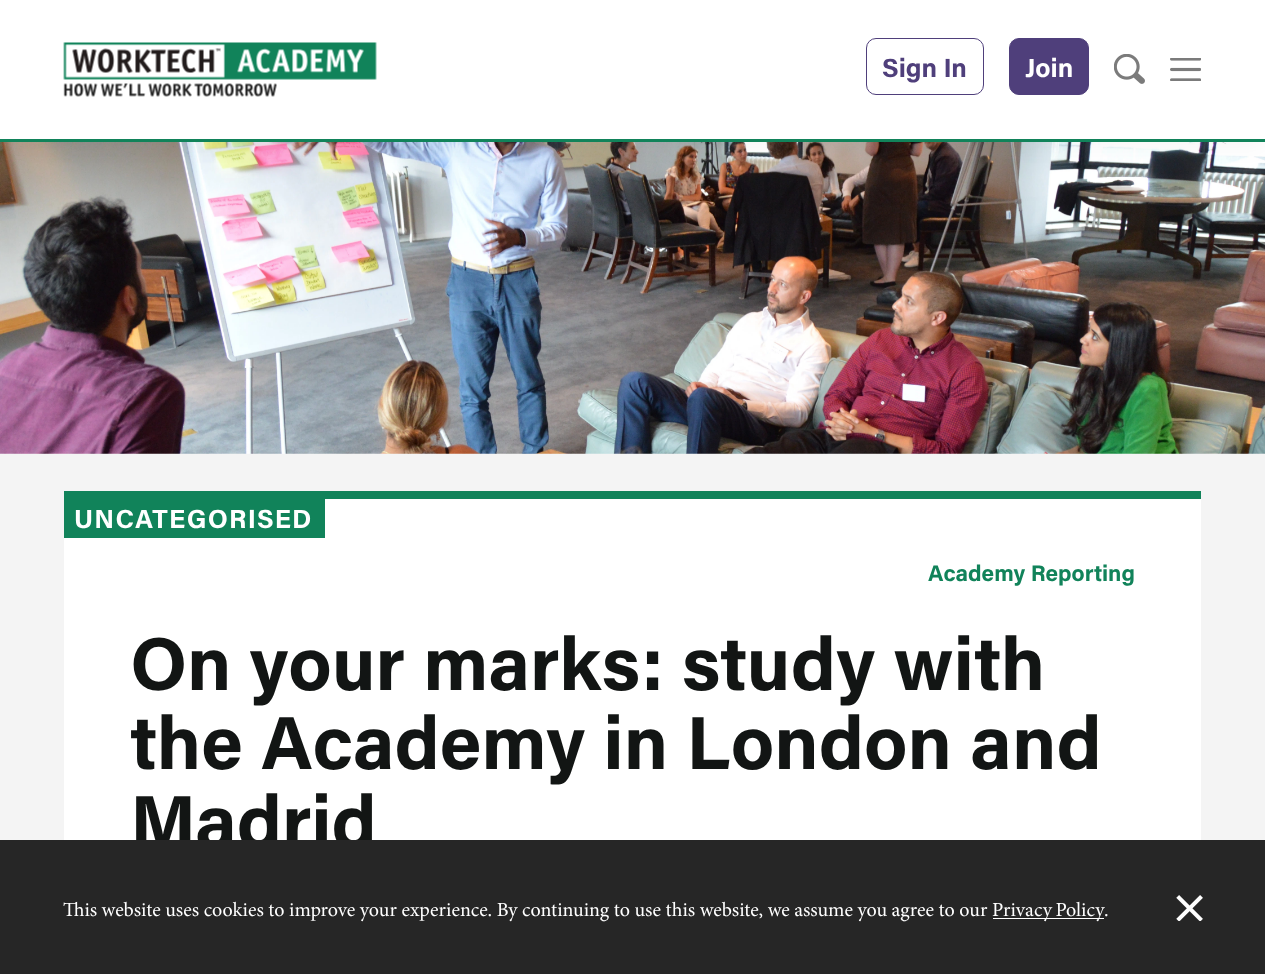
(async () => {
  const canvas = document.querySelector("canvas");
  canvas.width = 1265;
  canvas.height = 974;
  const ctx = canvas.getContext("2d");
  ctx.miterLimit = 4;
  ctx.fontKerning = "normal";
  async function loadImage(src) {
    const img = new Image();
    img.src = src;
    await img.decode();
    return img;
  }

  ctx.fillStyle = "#f4f4f4";
  ctx.fillRect(0, 0, 1265, 974);
  ctx.drawImage(await loadImage("img/4.png"), 0, 142, 1265, 312);
  ctx.fillStyle = "rgba(0, 0, 0, 0.06)";
  ctx.filter = "blur(13px)";
  ctx.beginPath();
  ctx.rect(0, 0, 1265, 141);
  ctx.fill();
  ctx.filter = "none";
  ctx.fillStyle = "#ffffff";
  ctx.fillRect(0, 0, 1265, 139);
  ctx.fillStyle = "#11835a";
  ctx.fillRect(0, 139, 1265, 3);
  ctx.drawImage(await loadImage("img/1.png"), 63, 42, 314, 55);
  ctx.beginPath();
  ctx.roundRect(866.5, 38.5, 117, 56, 9.5);
  ctx.strokeStyle = "#4f3f7b";
  ctx.stroke();
  ctx.fillStyle = "#4f3f7b";
  ctx.beginPath();
  ctx.roundRect(1009.5, 38.5, 79, 56, 9.5);
  ctx.fill();
  ctx.stroke();
  ctx.drawImage(await loadImage("img/2.png"), 1114, 54, 31, 30);
  ctx.drawImage(await loadImage("img/3.png"), 1170, 58, 31, 23);
  for (const [x, y, w, h, color] of [
    [64, 499, 1137, 341, "#ffffff"],
    [64, 491, 1137, 8, "#11835a"],
    [64, 499, 261, 39, "#11835a"],
  ]) {
    ctx.fillStyle = color;
    ctx.fillRect(x, y, w, h);
  }
  ctx.font = "bold 26.25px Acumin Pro";
  ctx.fillStyle = "#4f3f7b";
  ctx.fillText("Sign In", 882, 77);
  ctx.fillStyle = "#ffffff";
  ctx.fillText("Join", 1025, 77);
  ctx.letterSpacing = "1.25px";
  ctx.fillText("UNCATEGORISED", 74, 528);
  ctx.letterSpacing = "0px";
  ctx.font = "bold 22.5px Acumin Pro";
  ctx.fillStyle = "#11835a";
  ctx.fillText("Academy Reporting", 928, 581);
  ctx.font = "bold 75px Acumin Pro";
  ctx.fillStyle = "#121514";
  for (const [text, x, y] of [
    ["On your marks: study with", 130, 690],
    ["the Academy in London and", 130, 769],
    ["Madrid", 130, 848],
  ]) {
    ctx.fillText(text, x, y);
  }
  ctx.fillStyle = "#262626";
  ctx.fillRect(0, 840, 1265, 134);
  ctx.font = "20px Minion";
  ctx.fillStyle = "#ffffff";
  ctx.fillText("This website uses cookies to improve your experience. By continuing to use this website, we assume you agree to our", 63, 916);
  ctx.fillRect(993, 918, 111, 1);
  ctx.wordSpacing = "-1px";
  ctx.fillText("Privacy Policy", 992, 916);
  ctx.wordSpacing = "0px";
  ctx.fillText(".", 1104, 916);
  ctx.drawImage(await loadImage("img/5.png"), 1176, 895, 27, 26);
})();
